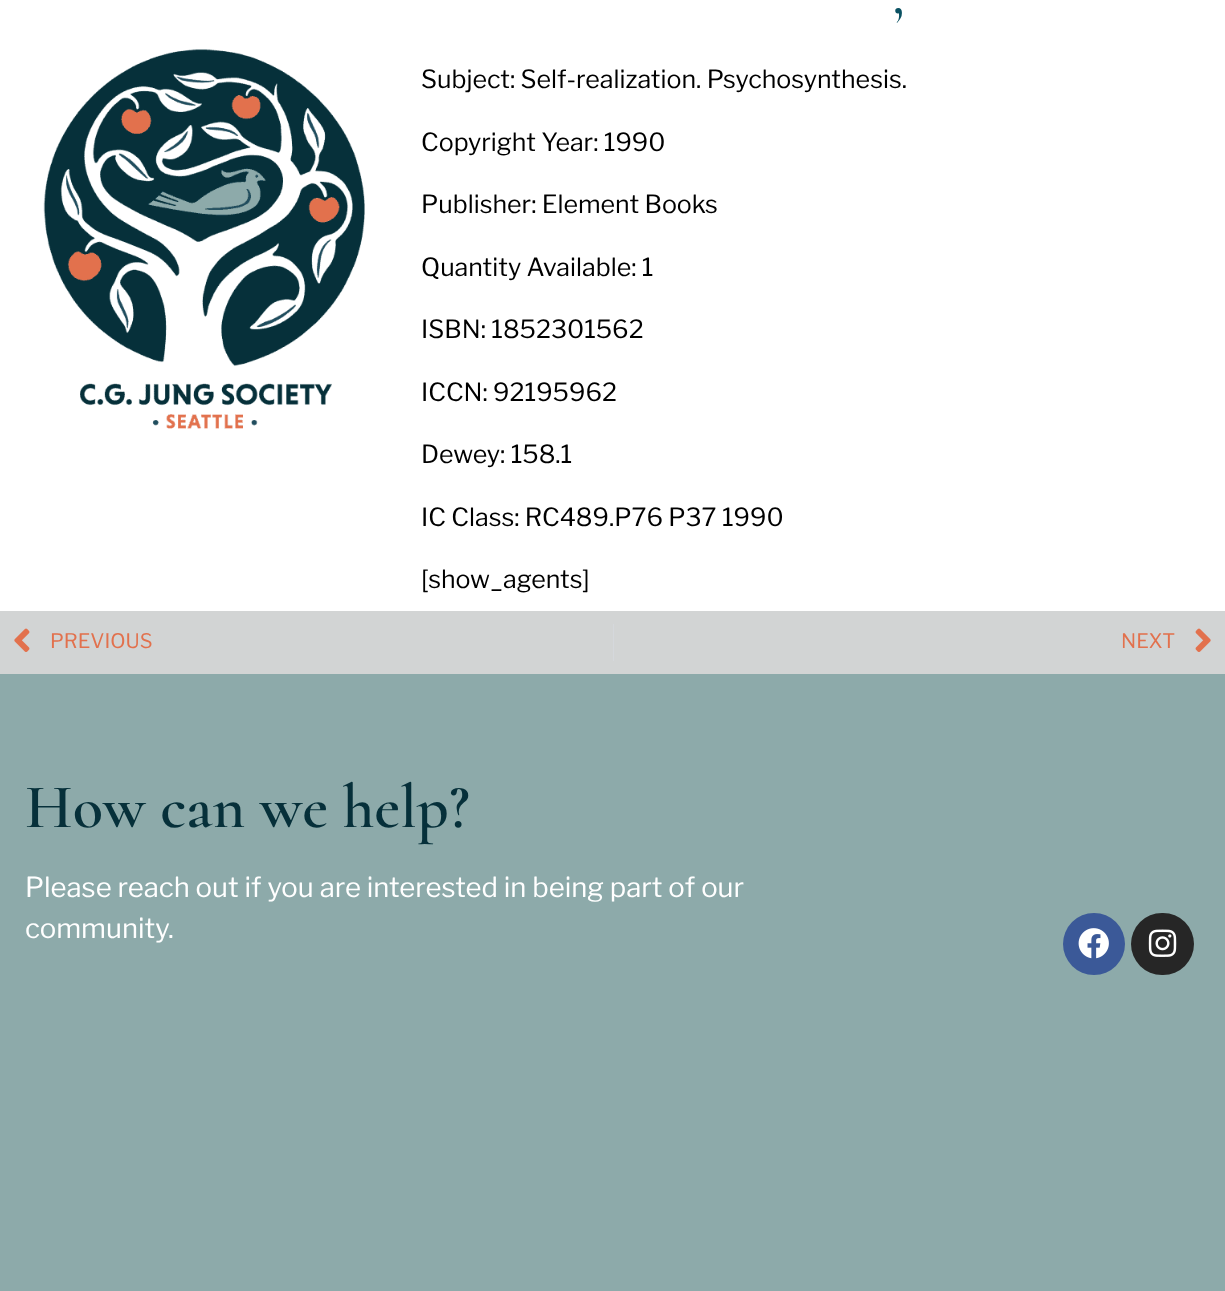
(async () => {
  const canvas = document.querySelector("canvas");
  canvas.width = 1225;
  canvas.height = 1291;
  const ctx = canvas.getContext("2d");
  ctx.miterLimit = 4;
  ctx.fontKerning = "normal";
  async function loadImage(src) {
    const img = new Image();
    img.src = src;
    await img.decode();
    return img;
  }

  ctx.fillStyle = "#ffffff";
  ctx.fillRect(0, 0, 1225, 1291);
  ctx.drawImage(await loadImage("img/1.png"), 43, 49, 322, 380);
  ctx.fillStyle = "#d2d4d4";
  ctx.fillRect(0, 611, 1225, 63);
  ctx.drawImage(await loadImage("img/2.png"), 14, 628, 16, 24);
  ctx.fillStyle = "#d5d8dc";
  ctx.fillRect(613, 624, 1, 37);
  ctx.drawImage(await loadImage("img/3.png"), 1195, 628, 16, 24);
  ctx.fillStyle = "#8daaaa";
  ctx.fillRect(0, 674, 1225, 617);
  ctx.fillStyle = "#3b5998";
  ctx.beginPath();
  ctx.arc(1094, 944, 31, 0, Math.PI * 2);
  ctx.fill();
  ctx.drawImage(await loadImage("img/4.png"), 1078, 928, 31, 31);
  ctx.fillStyle = "#262626";
  ctx.beginPath();
  ctx.roundRect(1131, 913, 63, 62, 31);
  ctx.fill();
  ctx.drawImage(await loadImage("img/5.png"), 1148, 929, 29, 28);
  ctx.font = "600 52px Cormorant";
  ctx.fillStyle = "#0a5162";
  ctx.fillText(",", 893, 13);
  ctx.font = "25px Libre Franklin";
  ctx.fillStyle = "#000000";
  for (const [text, x, y] of [
    ["Subject: Self-realization. Psychosynthesis.", 421, 88],
    ["Copyright Year: 1990", 421, 151],
    ["Publisher: Element Books", 421, 213],
    ["Quantity Available: 1", 421, 276],
    ["ISBN: 1852301562", 421, 338],
    ["ICCN: 92195962", 421, 401],
    ["Dewey: 158.1", 421, 463],
    ["IC Class: RC489.P76 P37 1990", 421, 526],
    ["[show_agents]", 421, 588],
  ]) {
    ctx.fillText(text, x, y);
  }
  ctx.font = "20px Libre Franklin";
  ctx.fillStyle = "#e2714d";
  ctx.fillText("PREVIOUS", 50, 648);
  ctx.fillText("NEXT", 1121, 648);
  ctx.font = "600 62.5px Cormorant";
  ctx.fillStyle = "#06303a";
  ctx.fillText("How can we help?", 25, 827);
  ctx.font = "27.5px Libre Franklin";
  ctx.fillStyle = "#ffffff";
  ctx.fillText("Please reach out if you are interested in being part of our", 25, 897);
  ctx.fillText("community.", 25, 938);
})();
